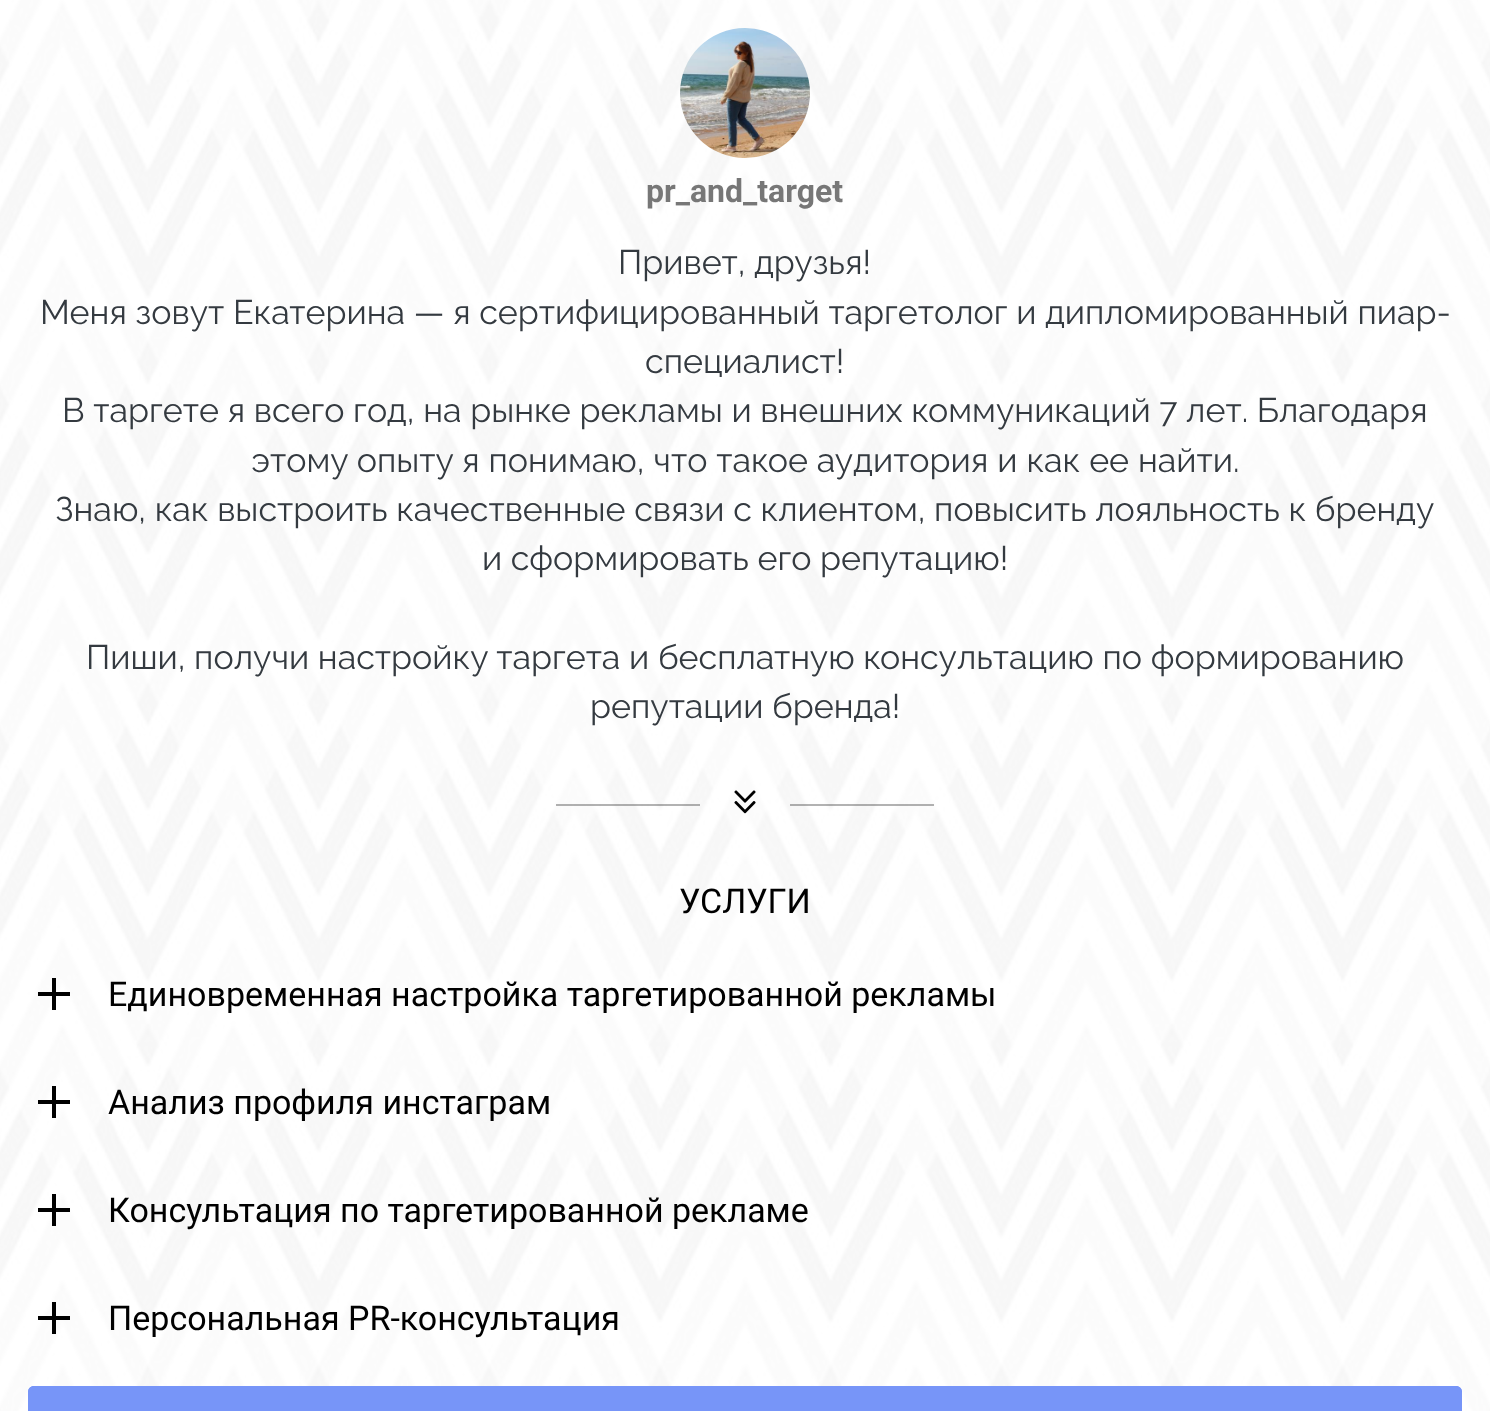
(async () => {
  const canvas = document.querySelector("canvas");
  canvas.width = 1490;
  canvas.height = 1411;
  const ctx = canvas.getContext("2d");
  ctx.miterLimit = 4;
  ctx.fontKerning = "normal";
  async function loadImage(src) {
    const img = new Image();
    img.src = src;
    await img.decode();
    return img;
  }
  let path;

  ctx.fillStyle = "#ffffff";
  ctx.fillRect(0, 0, 1490, 1411);
  ctx.drawImage(await loadImage("img/1.png"), 0, 0, 1490, 1411);
  ctx.drawImage(await loadImage("img/2.png"), 680, 28, 130, 130);
  ctx.fillStyle = "rgba(0, 0, 0, 0.3)";
  ctx.fillRect(556, 804, 144, 2);
  ctx.drawImage(await loadImage("img/3.png"), 734, 790, 22, 24);
  for (const [x, y, w, h, color] of [
    [790, 804, 144, 2, "rgba(0, 0, 0, 0.3)"],
    [52, 978, 4, 32, "#000000"],
    [38, 992, 32, 4, "#000000"],
    [52, 1086, 4, 32, "#000000"],
    [38, 1100, 32, 4, "#000000"],
    [52, 1194, 4, 32, "#000000"],
    [38, 1208, 32, 4, "#000000"],
    [52, 1302, 4, 32, "#000000"],
    [38, 1316, 32, 4, "#000000"],
  ]) {
    ctx.fillStyle = color;
    ctx.fillRect(x, y, w, h);
  }
  ctx.fillStyle = "#7795f8";
  path = new Path2D("M34 1386H1456C1459.5 1386 1462 1388.5 1462 1392V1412H28V1392C28 1388.5 30.5 1386 34 1386Z");
  ctx.fill(path);
  ctx.beginPath();
  ctx.roundRect(30, 1388, 1430, 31, 4);
  ctx.strokeStyle = "#7795f8";
  ctx.lineWidth = 4;
  ctx.stroke();
  ctx.font = "bold 32px Roboto";
  ctx.fillStyle = "#777777";
  ctx.fillText("pr_and_target", 646, 202);
  ctx.font = "100 34px Raleway";
  ctx.fillStyle = "#343a40";
  for (const [text, x, y] of [
    ["Привет, друзья!", 618, 274],
    ["Меня зовут Екатерина — я сертифицированный таргетолог и дипломированный пиар-", 40, 324],
    ["специалист!", 645, 373],
    ["В таргете я всего год, на рынке рекламы и внешних коммуникаций 7 лет. Благодаря", 62, 422],
  ]) {
    ctx.fillText(text, x, y);
  }
  ctx.wordSpacing = "0.25px";
  ctx.fillText("этому опыту я понимаю, что такое аудитория и как ее найти.", 251, 472);
  ctx.wordSpacing = "0px";
  for (const [text, x, y] of [
    ["Знаю, как выстроить качественные связи с клиентом, повысить лояльность к бренду", 55, 521],
    ["и сформировать его репутацию!", 482, 570],
    ["Пиши, получи настройку таргета и бесплатную консультацию по формированию", 86, 669],
    ["репутации бренда!", 590, 718],
  ]) {
    ctx.fillText(text, x, y);
  }
  ctx.font = "34px Roboto";
  ctx.fillStyle = "#000000";
  for (const [text, x, y] of [
    ["УСЛУГИ", 679, 913],
    ["Единовременная настройка таргетированной рекламы", 108, 1006],
    ["Анализ профиля инстаграм", 108, 1114],
    ["Консультация по таргетированной рекламе", 108, 1222],
    ["Персональная PR-консультация", 108, 1330],
  ]) {
    ctx.fillText(text, x, y);
  }
})();
